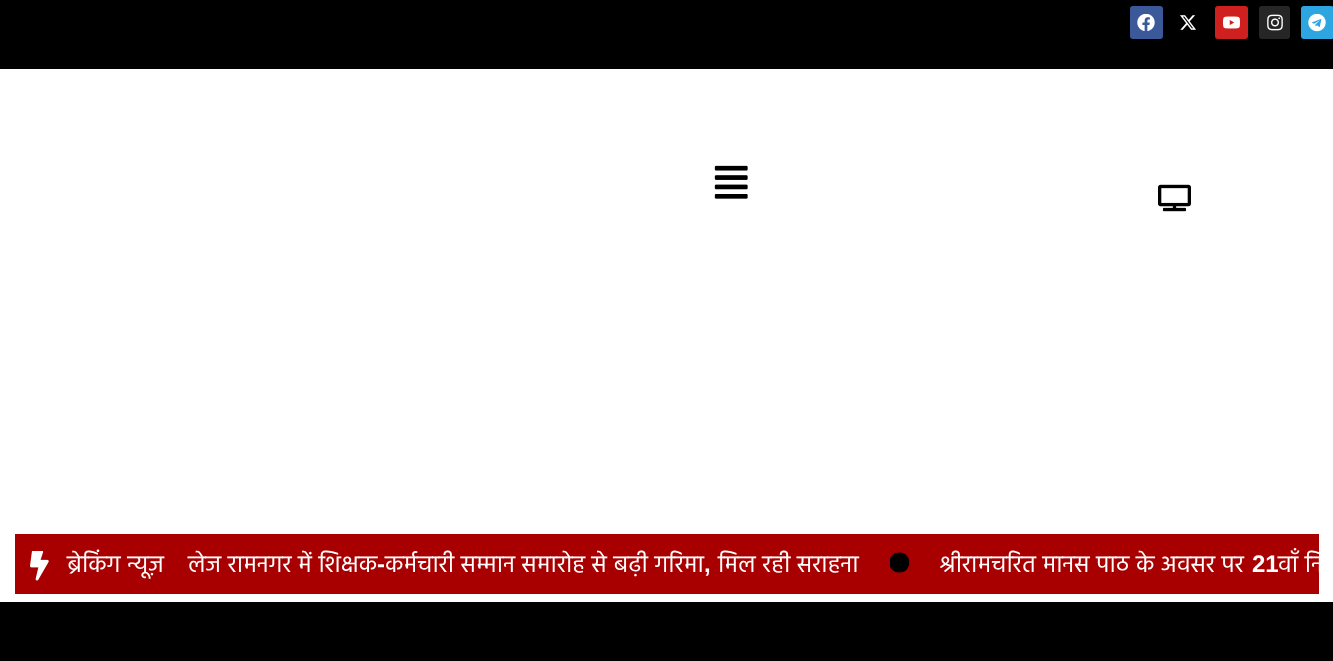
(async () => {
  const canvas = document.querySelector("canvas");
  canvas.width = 1333;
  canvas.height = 661;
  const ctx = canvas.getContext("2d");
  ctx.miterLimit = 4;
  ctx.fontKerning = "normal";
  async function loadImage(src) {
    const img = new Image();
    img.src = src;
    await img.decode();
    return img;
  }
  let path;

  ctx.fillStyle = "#ffffff";
  ctx.fillRect(0, 0, 1333, 661);
  ctx.fillStyle = "#000000";
  ctx.fillRect(0, 0, 1333, 69);
  ctx.fillStyle = "#3b5998";
  ctx.beginPath();
  ctx.roundRect(1130, 6, 33, 33, 3);
  ctx.fill();
  ctx.drawImage(await loadImage("img/1.png"), 1137, 14, 18, 18);
  ctx.drawImage(await loadImage("img/2.png"), 1180, 15, 16, 15);
  ctx.fillStyle = "#cd201f";
  ctx.beginPath();
  ctx.roundRect(1215, 6, 33, 33, 3);
  ctx.fill();
  ctx.drawImage(await loadImage("img/3.png"), 1223, 16, 18, 13);
  ctx.fillStyle = "#262626";
  ctx.beginPath();
  ctx.roundRect(1259, 6, 31, 33, 3);
  ctx.fill();
  ctx.drawImage(await loadImage("img/4.png"), 1267, 14, 16, 17);
  ctx.fillStyle = "#2ca5e0";
  ctx.beginPath();
  ctx.roundRect(1301, 6, 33, 33, 3);
  ctx.fill();
  ctx.drawImage(await loadImage("img/5.png"), 1308, 14, 18, 18);
  ctx.save();
  ctx.beginPath();
  ctx.rect(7, 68, 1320, 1);
  ctx.clip();
  ctx.fillStyle = "rgba(0, 0, 0, 0.5)";
  ctx.filter = "blur(5px)";
  ctx.beginPath();
  ctx.rect(0, 77, 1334, 450);
  ctx.fill();
  ctx.filter = "none";
  ctx.restore();
  ctx.drawImage(await loadImage("img/6.png"), 714, 165, 34, 34);
  ctx.drawImage(await loadImage("img/7.png"), 1158, 184, 33, 28);
  ctx.fillStyle = "#ffffff";
  ctx.fillRect(0, 519, 1333, 18);
  ctx.fillStyle = "#a80000";
  ctx.fillRect(15, 534, 1304, 60);
  ctx.drawImage(await loadImage("img/8.png"), 30, 551, 19, 30);
  ctx.save();
  ctx.beginPath();
  ctx.rect(890, 552, 21, 21);
  ctx.clip();
  ctx.fillStyle = "#000000";
  path = new Path2D("M899.5 552.5C886 552.5 886 572.5 899.5 572.5C912.5 572.5 912.5 552.5 899.5 552.5Z");
  ctx.fill(path);
  ctx.restore();
  ctx.fillStyle = "#000000";
  ctx.fillRect(0, 602, 1333, 59);
  ctx.wordSpacing = "1px";
  ctx.font = "24px Hind";
  ctx.fillStyle = "#ffffff";
  ctx.fillText("ब्रेकिंग न्यूज़", 67, 572);
  ctx.wordSpacing = "0.75px";
  ctx.fillText("लेज रामनगर में शिक्षक", 188, 572);
  ctx.wordSpacing = "0px";
  ctx.font = "bold 24px Liberation Sans";
  ctx.fillText("-", 377, 572);
  ctx.wordSpacing = "0.75px";
  ctx.font = "24px Hind";
  ctx.fillText("कर्मचारी सम्मान समारोह से बढ़ी गरिमा", 385, 572);
  ctx.fillText("मिल रही सराहना", 718, 572);
  ctx.wordSpacing = "0px";
  ctx.font = "bold 24px Liberation Sans";
  ctx.fillText(",", 704, 572);
  ctx.wordSpacing = "0.75px";
  ctx.font = "24px Hind";
  ctx.fillText("श्रीरामचरित मानस पाठ के अवसर पर", 939, 572);
  ctx.wordSpacing = "0px";
  ctx.font = "bold 24px Liberation Sans";
  ctx.fillText("21", 1252, 572);
  ctx.save();
  ctx.beginPath();
  ctx.rect(179, 534, 1140, 60);
  ctx.clip();
  ctx.wordSpacing = "0.75px";
  ctx.font = "24px Hind";
  ctx.fillText("वाँ नि", 1278, 572);
  ctx.restore();
})();
